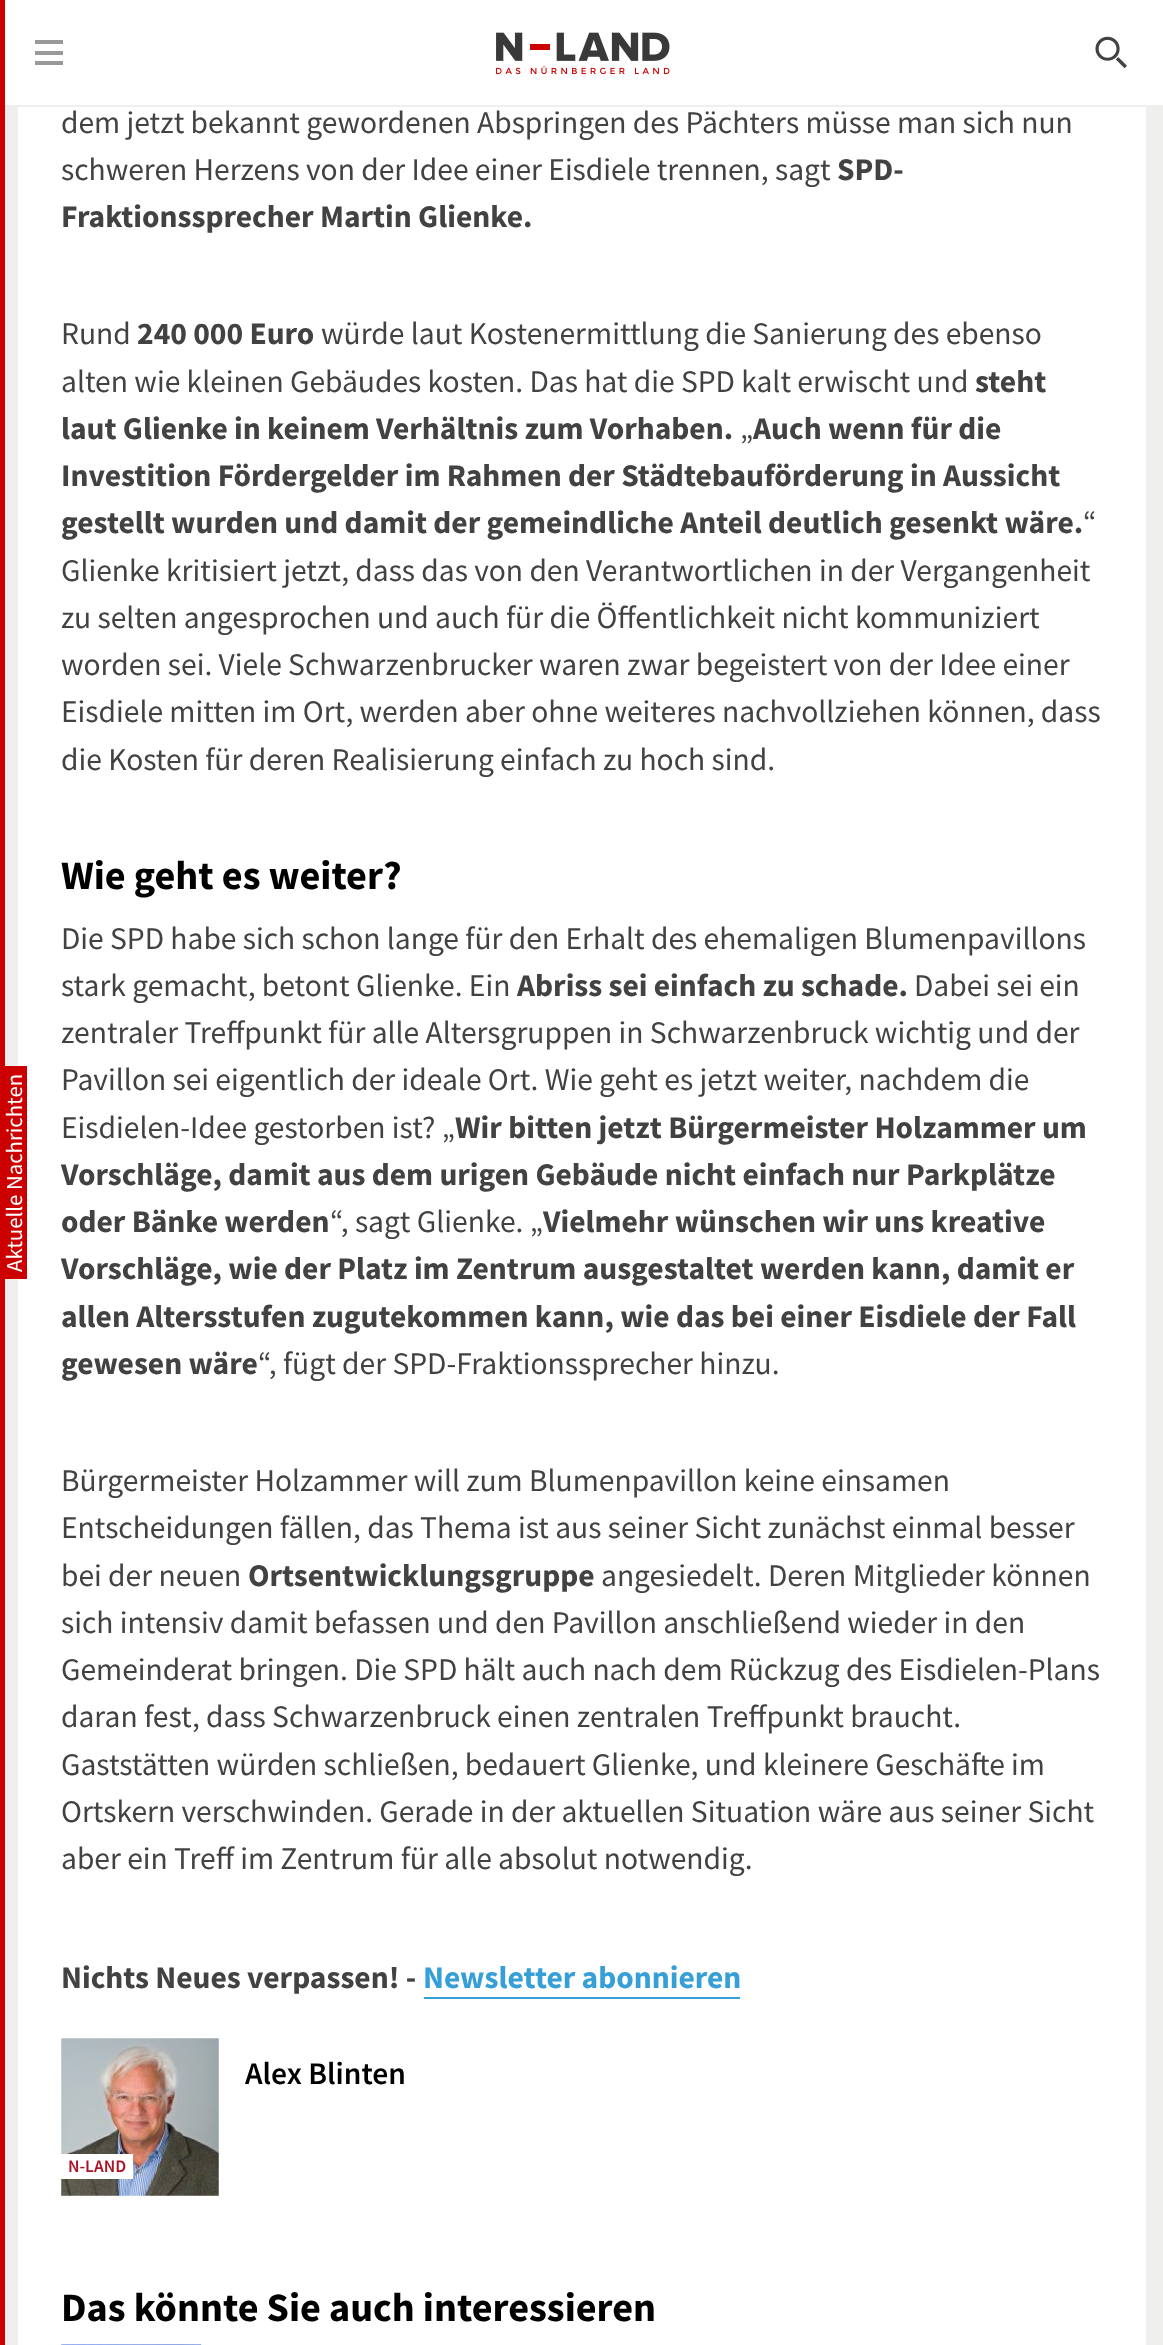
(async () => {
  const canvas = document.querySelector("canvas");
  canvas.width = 1163;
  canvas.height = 2345;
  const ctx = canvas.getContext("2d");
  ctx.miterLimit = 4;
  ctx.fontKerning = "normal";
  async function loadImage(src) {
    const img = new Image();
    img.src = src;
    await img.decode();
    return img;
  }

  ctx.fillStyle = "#eff0ed";
  ctx.fillRect(0, 0, 1163, 2345);
  for (const [x, y, w, h, color] of [
    [5, 0, 1158, 105, "#ffffff"],
    [35, 40, 28, 4, "#999999"],
    [35, 51, 28, 4, "#999999"],
    [35, 61, 28, 4, "#999999"],
  ]) {
    ctx.fillStyle = color;
    ctx.fillRect(x, y, w, h);
  }
  ctx.drawImage(await loadImage("img/1.png"), 496, 32, 174, 43);
  ctx.drawImage(await loadImage("img/2.png"), 1095, 36, 32, 33);
  for (const [x, y, w, h, color] of [
    [0, 0, 5, 2345, "#cc0000"],
    [18, 107, 1128, 2238, "#ffffff"],
    [5, 1066, 22, 213, "#cc0000"],
    [424, 1997, 316, 2, "#379fd7"],
  ]) {
    ctx.fillStyle = color;
    ctx.fillRect(x, y, w, h);
  }
  ctx.drawImage(await loadImage("img/3.png"), 61, 2038, 158, 158);
  ctx.fillStyle = "#ffffff";
  ctx.fillRect(61, 2154, 72, 25);
  ctx.drawImage(await loadImage("img/4.png"), 61, 2344, 141, 1);
  ctx.font = "22.75px Source Sans Pro";
  ctx.save();
  ctx.translate(22, 1272);
  ctx.rotate(-90 * Math.PI / 180);
  ctx.fillText("Aktuelle Nachrichten", 0, 0);
  ctx.restore();
  ctx.font = "31.5px Source Sans Pro";
  ctx.fillStyle = "#424242";
  ctx.fillText("dem jetzt bekannt gewordenen Abspringen des Pächters müsse man sich nun", 61, 133);
  ctx.fillText("schweren Herzens von der Idee einer Eisdiele trennen, sagt", 61, 180);
  ctx.font = "bold 31.5px Source Sans Pro";
  ctx.fillText("SPD-", 837, 180);
  ctx.fillText("Fraktionssprecher Martin Glienke.", 61, 227);
  ctx.font = "31.5px Source Sans Pro";
  ctx.fillText("Rund", 61, 344);
  ctx.font = "bold 31.5px Source Sans Pro";
  ctx.fillText("240 000 Euro", 137, 344);
  ctx.font = "31.5px Source Sans Pro";
  ctx.fillText("würde laut Kostenermittlung die Sanierung des ebenso", 321, 344);
  ctx.fillText("alten wie kleinen Gebäudes kosten. Das hat die SPD kalt erwischt und", 61, 392);
  ctx.font = "bold 31.5px Source Sans Pro";
  ctx.fillText("steht", 975, 392);
  ctx.fillText("laut Glienke in keinem Verhältnis zum Vorhaben.", 61, 439);
  ctx.font = "31.5px Source Sans Pro";
  ctx.fillText("„", 740, 439);
  ctx.font = "bold 31.5px Source Sans Pro";
  for (const [text, x, y] of [
    ["Auch wenn für die", 753, 439],
    ["Investition Fördergelder im Rahmen der Städtebauförderung in Aussicht", 61, 486],
    ["gestellt wurden und damit der gemeindliche Anteil deutlich gesenkt wäre.", 61, 533],
  ]) {
    ctx.fillText(text, x, y);
  }
  ctx.font = "31.5px Source Sans Pro";
  for (const [text, x, y] of [
    ["“", 1083, 533],
    ["Glienke kritisiert jetzt, dass das von den Verantwortlichen in der Vergangenheit", 61, 581],
    ["zu selten angesprochen und auch für die Öffentlichkeit nicht kommuniziert", 61, 628],
    ["worden sei. Viele Schwarzenbrucker waren zwar begeistert von der Idee einer", 61, 675],
    ["Eisdiele mitten im Ort, werden aber ohne weiteres nachvollziehen können, dass", 61, 722],
    ["die Kosten für deren Realisierung einfach zu hoch sind.", 61, 770],
  ]) {
    ctx.fillText(text, x, y);
  }
  ctx.font = "bold 40.25px Source Sans Pro";
  ctx.fillStyle = "#000000";
  ctx.fillText("Wie geht es weiter?", 61, 889);
  ctx.font = "31.5px Source Sans Pro";
  ctx.fillStyle = "#424242";
  ctx.fillText("Die SPD habe sich schon lange für den Erhalt des ehemaligen Blumenpavillons", 61, 949);
  ctx.fillText("stark gemacht, betont Glienke. Ein", 61, 996);
  ctx.font = "bold 31.5px Source Sans Pro";
  ctx.fillText("Abriss sei einfach zu schade.", 517, 996);
  ctx.font = "31.5px Source Sans Pro";
  for (const [text, x, y] of [
    ["Dabei sei ein", 914, 996],
    ["zentraler Treffpunkt für alle Altersgruppen in Schwarzenbruck wichtig und der", 61, 1043],
    ["Pavillon sei eigentlich der ideale Ort. Wie geht es jetzt weiter, nachdem die", 61, 1090],
    ["Eisdielen-Idee gestorben ist? „", 61, 1138],
  ]) {
    ctx.fillText(text, x, y);
  }
  ctx.font = "bold 31.5px Source Sans Pro";
  for (const [text, x, y] of [
    ["Wir bitten jetzt Bürgermeister Holzammer um", 455, 1138],
    ["Vorschläge, damit aus dem urigen Gebäude nicht einfach nur Parkplätze", 61, 1185],
    ["oder Bänke werden", 61, 1232],
  ]) {
    ctx.fillText(text, x, y);
  }
  ctx.font = "31.5px Source Sans Pro";
  ctx.fillText("“, sagt Glienke. „", 330, 1232);
  ctx.font = "bold 31.5px Source Sans Pro";
  for (const [text, x, y] of [
    ["Vielmehr wünschen wir uns kreative", 543, 1232],
    ["Vorschläge, wie der Platz im Zentrum ausgestaltet werden kann, damit er", 61, 1279],
    ["allen Altersstufen zugutekommen kann, wie das bei einer Eisdiele der Fall", 61, 1327],
    ["gewesen wäre", 61, 1374],
  ]) {
    ctx.fillText(text, x, y);
  }
  ctx.font = "31.5px Source Sans Pro";
  for (const [text, x, y] of [
    ["“, fügt der SPD-Fraktionssprecher hinzu.", 258, 1374],
    ["Bürgermeister Holzammer will zum Blumenpavillon keine einsamen", 61, 1491],
    ["Entscheidungen fällen, das Thema ist aus seiner Sicht zunächst einmal besser", 61, 1538],
    ["bei der neuen", 61, 1586],
  ]) {
    ctx.fillText(text, x, y);
  }
  ctx.font = "bold 31.5px Source Sans Pro";
  ctx.fillText("Ortsentwicklungsgruppe", 248, 1586);
  ctx.font = "31.5px Source Sans Pro";
  for (const [text, x, y] of [
    ["angesiedelt. Deren Mitglieder können", 601, 1586],
    ["sich intensiv damit befassen und den Pavillon anschließend wieder in den", 61, 1633],
    ["Gemeinderat bringen. Die SPD hält auch nach dem Rückzug des Eisdielen-Plans", 61, 1680],
    ["daran fest, dass Schwarzenbruck einen zentralen Treffpunkt braucht.", 61, 1727],
    ["Gaststätten würden schließen, bedauert Glienke, und kleinere Geschäfte im", 61, 1775],
    ["Ortskern verschwinden. Gerade in der aktuellen Situation wäre aus seiner Sicht", 61, 1822],
    ["aber ein Treff im Zentrum für alle absolut notwendig.", 61, 1869],
  ]) {
    ctx.fillText(text, x, y);
  }
  ctx.font = "bold 31.5px Source Sans Pro";
  ctx.fillText("Nichts Neues verpassen! -", 61, 1988);
  ctx.fillStyle = "#379fd7";
  ctx.fillText("Newsletter abonnieren", 423, 1988);
  ctx.font = "600 31.5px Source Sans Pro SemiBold";
  ctx.fillStyle = "#000000";
  ctx.fillText("Alex Blinten", 245, 2084);
  ctx.font = "600 17.5px Source Sans Pro SemiBold";
  ctx.fillStyle = "#ad1327";
  ctx.fillText("N-LAND", 68, 2172);
  ctx.font = "bold 40.25px Source Sans Pro";
  ctx.fillStyle = "#000000";
  ctx.fillText("Das könnte Sie auch interessieren", 61, 2321);
})();
